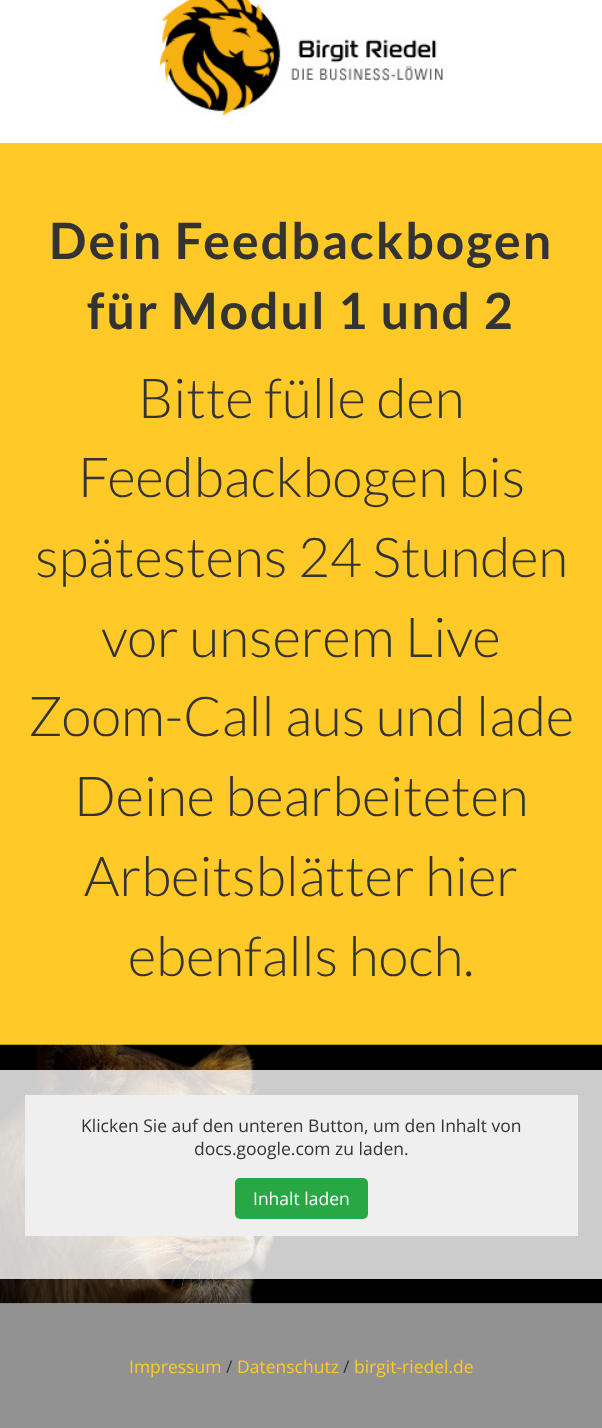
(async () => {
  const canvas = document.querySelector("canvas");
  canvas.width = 602;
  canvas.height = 1428;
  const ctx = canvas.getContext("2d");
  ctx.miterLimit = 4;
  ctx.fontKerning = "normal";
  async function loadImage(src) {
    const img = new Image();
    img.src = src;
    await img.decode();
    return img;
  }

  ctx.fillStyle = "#ffffff";
  ctx.fillRect(0, 0, 602, 1428);
  ctx.drawImage(await loadImage("img/1.png"), 156, 0, 289, 116);
  ctx.fillStyle = "#ffc928";
  ctx.fillRect(0, 143, 602, 902);
  ctx.drawImage(await loadImage("img/2.png"), 0, 1044, 602, 260);
  ctx.fillStyle = "rgba(255, 255, 255, 0.8)";
  ctx.fillRect(0, 1070, 602, 209);
  ctx.fillStyle = "#efefef";
  ctx.fillRect(25, 1095, 553, 141);
  ctx.fillStyle = "#28a745";
  ctx.beginPath();
  ctx.roundRect(235, 1178, 133, 41, 5);
  ctx.fill();
  ctx.fillStyle = "#929292";
  ctx.fillRect(0, 1304, 602, 124);
  ctx.letterSpacing = "2px";
  ctx.font = "bold 50px Lato";
  ctx.fillStyle = "#333333";
  ctx.fillText("Dein Feedbackbogen", 49, 259);
  ctx.fillText("für Modul 1 und 2", 87, 329);
  ctx.letterSpacing = "0px";
  ctx.font = "300 55px Lato";
  for (const [text, x, y] of [
    ["Bitte fülle den", 138, 418],
    ["Feedbackbogen bis", 78, 497],
    ["spätestens 24 Stunden", 35, 577],
    ["vor unserem Live", 101, 657],
    ["Zoom-Call aus und lade", 28, 736],
    ["Deine bearbeiteten", 74, 816],
    ["Arbeitsblätter hier", 84, 896],
    ["ebenfalls hoch.", 128, 976],
  ]) {
    ctx.fillText(text, x, y);
  }
  ctx.font = "17.5px Open Sans";
  ctx.fillText("Klicken Sie auf den unteren Button, um den Inhalt von", 81, 1132);
  ctx.fillText("docs.google.com zu laden.", 194, 1155);
  ctx.fillStyle = "#ffffff";
  ctx.fillText("Inhalt laden", 253, 1205);
  ctx.fillStyle = "#ffc928";
  ctx.fillText("Impressum", 129, 1373);
  ctx.fillStyle = "#333333";
  ctx.fillText("/", 226, 1373);
  ctx.fillStyle = "#ffc928";
  ctx.fillText("Datenschutz", 237, 1373);
  ctx.fillStyle = "#333333";
  ctx.fillText("/", 343, 1373);
  ctx.fillStyle = "#ffc928";
  ctx.fillText("birgit-riedel.de", 354, 1373);
})();
